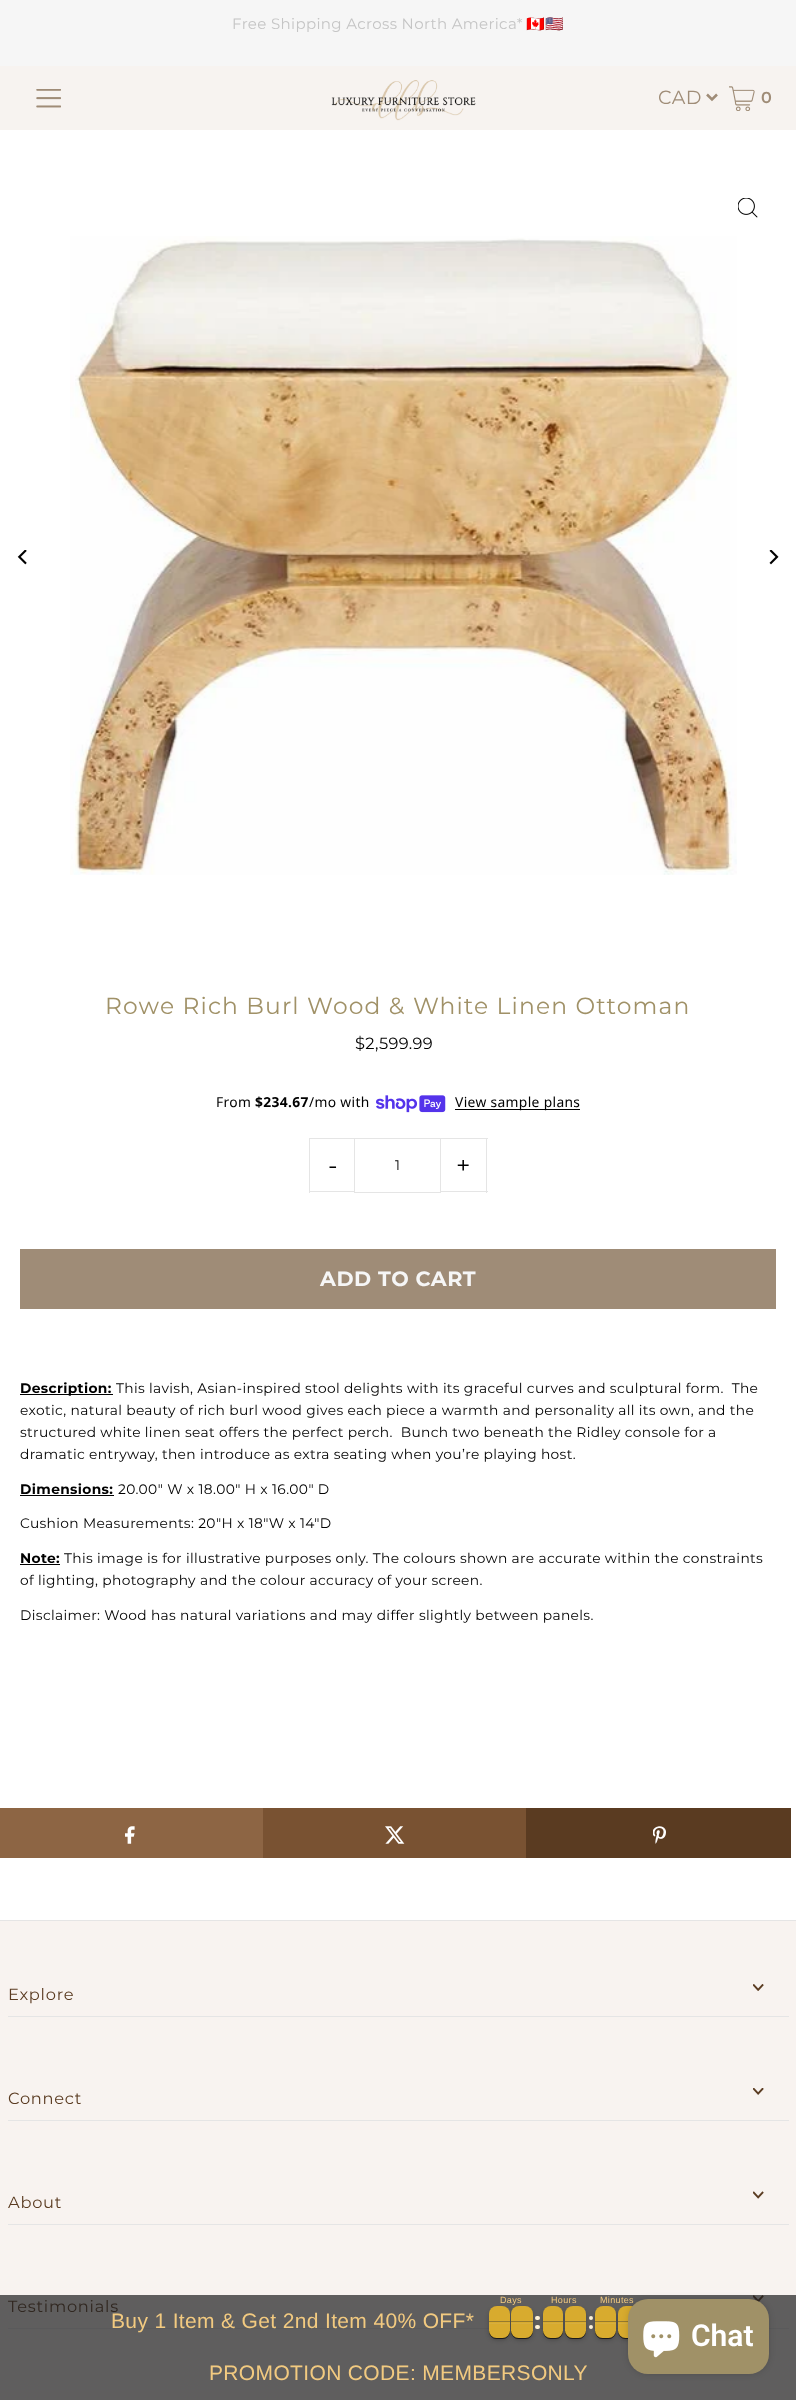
(async () => {
  const canvas = document.querySelector("canvas");
  canvas.width = 796;
  canvas.height = 2400;
  const ctx = canvas.getContext("2d");
  ctx.miterLimit = 4;
  ctx.fontKerning = "normal";
  async function loadImage(src) {
    const img = new Image();
    img.src = src;
    await img.decode();
    return img;
  }
  let path;

  ctx.fillStyle = "#ffffff";
  ctx.fillRect(0, 0, 796, 2400);
  ctx.fillStyle = "#f6f6f6";
  ctx.fillRect(0, 0, 796, 66);
  ctx.fillStyle = "#f7f3f0";
  ctx.fillRect(0, 66, 796, 64);
  ctx.drawImage(await loadImage("img/1.png"), 36, 89, 25, 19);
  ctx.drawImage(await loadImage("img/2.png"), 331, 80, 145, 41);
  path = new Path2D("M707 94.5L712 99.5L717 94.5");
  ctx.strokeStyle = "#9f8c77";
  ctx.lineWidth = 2.5;
  ctx.stroke(path);
  ctx.drawImage(await loadImage("img/3.png"), 729, 86, 26, 25);
  ctx.drawImage(await loadImage("img/4.png"), 17, 550, 10, 15);
  ctx.drawImage(await loadImage("img/5.png"), 738, 198, 20, 20);
  ctx.drawImage(await loadImage("img/6.png"), 70, 236, 667, 639);
  ctx.drawImage(await loadImage("img/7.png"), 769, 550, 10, 15);
  ctx.drawImage(await loadImage("img/8.png"), 376, 1095, 70, 18);
  for (const [x, y, w, h, color] of [
    [455, 1109, 125, 1, "#000000"],
    [309, 1138, 47, 1, "#e5e5e5"],
    [309, 1191, 47, 1, "#e5e5e5"],
    [309, 1138, 1, 55, "#e5e5e5"],
    [355, 1191, 1, 1, "#ffffff"],
  ]) {
    ctx.fillStyle = color;
    ctx.fillRect(x, y, w, h);
  }
  ctx.strokeStyle = "#e5e5e5";
  ctx.lineWidth = 1;
  ctx.strokeRect(354.5, 1138.5, 86, 54);
  for (const [x, y, w, h, color] of [
    [440, 1138, 48, 1, "#e5e5e5"],
    [486, 1138, 1, 55, "#e5e5e5"],
    [440, 1191, 48, 1, "#e5e5e5"],
    [20, 1249, 756, 60, "#9f8c77"],
    [20, 1394, 93, 1, "#000000"],
    [20, 1495, 94, 1, "#000000"],
    [20, 1564, 40, 1, "#000000"],
    [0, 1808, 263, 50, "#8d6544"],
  ]) {
    ctx.fillStyle = color;
    ctx.fillRect(x, y, w, h);
  }
  ctx.drawImage(await loadImage("img/9.png"), 125, 1826, 10, 18);
  ctx.fillStyle = "#795232";
  ctx.fillRect(263, 1808, 263, 50);
  ctx.drawImage(await loadImage("img/10.png"), 385, 1826, 20, 18);
  ctx.fillStyle = "#5a3b21";
  ctx.fillRect(526, 1808, 265, 50);
  ctx.drawImage(await loadImage("img/11.png"), 653, 1826, 13, 18);
  for (const [x, y, w, h, color] of [
    [0, 1921, 796, 374, "#f8f3f0"],
    [0, 2295, 796, 105, "#5f5e5e"],
    [0, 1920, 796, 1, "#e5e5e5"],
    [8, 2016, 781, 1, "#e5e5e5"],
  ]) {
    ctx.fillStyle = color;
    ctx.fillRect(x, y, w, h);
  }
  ctx.drawImage(await loadImage("img/12.png"), 753, 1984, 11, 7);
  ctx.fillRect(8, 2120, 781, 1);
  ctx.drawImage(await loadImage("img/13.png"), 753, 2088, 11, 7);
  ctx.fillRect(8, 2224, 781, 1);
  ctx.drawImage(await loadImage("img/14.png"), 753, 2191, 11, 8);
  ctx.fillStyle = "#5a5a5b";
  ctx.fillRect(8, 2328, 781, 1);
  ctx.drawImage(await loadImage("img/15.png"), 753, 2295, 11, 7);
  ctx.fillStyle = "rgba(0, 0, 0, 0.24)";
  ctx.filter = "blur(2px)";
  ctx.beginPath();
  ctx.roundRect(489, 2309, 21, 31, 8);
  ctx.fill();
  ctx.filter = "none";
  ctx.fillStyle = "rgba(0, 0, 0, 0.4)";
  ctx.filter = "blur(0.5px)";
  ctx.beginPath();
  ctx.roundRect(489, 2324, 21, 15, 7.5);
  ctx.fill();
  ctx.filter = "none";
  ctx.fillStyle = "rgba(0, 0, 0, 0.24)";
  ctx.filter = "blur(2px)";
  ctx.beginPath();
  ctx.roundRect(511, 2309, 22, 31, 8);
  ctx.fill();
  ctx.filter = "none";
  ctx.fillStyle = "#fff3d9";
  ctx.beginPath();
  ctx.roundRect(535, 2325, 5, 4, 2);
  ctx.fill();
  ctx.fillStyle = "rgba(0, 0, 0, 0.4)";
  ctx.filter = "blur(0.5px)";
  ctx.beginPath();
  ctx.roundRect(511, 2324, 22, 15, 7.5);
  ctx.fill();
  ctx.filter = "none";
  ctx.fillStyle = "#d8ab2e";
  ctx.beginPath();
  ctx.roundRect(489, 2306, 21, 17, [8, 8, 0, 0]);
  ctx.fill();
  ctx.fillStyle = "rgba(51, 51, 51, 0.4)";
  ctx.fillRect(489, 2321, 21, 1);
  ctx.fillStyle = "rgba(0, 0, 0, 0.4)";
  ctx.filter = "blur(0.5px)";
  ctx.beginPath();
  ctx.roundRect(489, 2324, 21, 15, 7.5);
  ctx.fill();
  ctx.filter = "none";
  ctx.fillStyle = "#d8ab2e";
  ctx.beginPath();
  ctx.roundRect(489, 2323, 21, 15, [0, 0, 7.5, 7.5]);
  ctx.fill();
  ctx.fillStyle = "rgba(204, 204, 204, 0.1)";
  ctx.fillRect(489, 2323, 21, 1);
  ctx.fillStyle = "#d8ab2e";
  ctx.beginPath();
  ctx.roundRect(511, 2306, 22, 17, [8, 8, 0, 0]);
  ctx.fill();
  ctx.fillStyle = "rgba(51, 51, 51, 0.4)";
  ctx.fillRect(511, 2321, 22, 1);
  ctx.fillStyle = "rgba(0, 0, 0, 0.4)";
  ctx.filter = "blur(0.5px)";
  ctx.beginPath();
  ctx.roundRect(511, 2324, 22, 15, 7.5);
  ctx.fill();
  ctx.filter = "none";
  ctx.fillStyle = "#d8ab2e";
  ctx.beginPath();
  ctx.roundRect(511, 2323, 22, 15, [0, 0, 7.5, 7.5]);
  ctx.fill();
  ctx.fillStyle = "rgba(204, 204, 204, 0.1)";
  ctx.fillRect(511, 2323, 22, 1);
  ctx.fillStyle = "#fff3d9";
  ctx.beginPath();
  ctx.roundRect(535, 2316, 5, 4, 2);
  ctx.fill();
  ctx.fillStyle = "rgba(0, 0, 0, 0.24)";
  ctx.filter = "blur(2px)";
  ctx.beginPath();
  ctx.roundRect(543, 2309, 20, 31, 8);
  ctx.fill();
  ctx.filter = "none";
  ctx.fillStyle = "rgba(0, 0, 0, 0.4)";
  ctx.filter = "blur(0.5px)";
  ctx.beginPath();
  ctx.roundRect(543, 2324, 20, 15, 7.5);
  ctx.fill();
  ctx.filter = "none";
  ctx.fillStyle = "rgba(0, 0, 0, 0.24)";
  ctx.filter = "blur(2px)";
  ctx.beginPath();
  ctx.roundRect(565, 2309, 21, 31, 8);
  ctx.fill();
  ctx.filter = "none";
  ctx.fillStyle = "rgba(0, 0, 0, 0.4)";
  ctx.filter = "blur(0.5px)";
  ctx.beginPath();
  ctx.roundRect(565, 2324, 21, 15, 7.5);
  ctx.fill();
  ctx.filter = "none";
  ctx.fillStyle = "#d8ab2e";
  ctx.beginPath();
  ctx.roundRect(543, 2306, 20, 17, [8, 8, 0, 0]);
  ctx.fill();
  ctx.fillStyle = "rgba(51, 51, 51, 0.4)";
  ctx.fillRect(543, 2321, 20, 1);
  ctx.fillStyle = "rgba(0, 0, 0, 0.4)";
  ctx.filter = "blur(0.5px)";
  ctx.beginPath();
  ctx.roundRect(543, 2324, 20, 15, 7.5);
  ctx.fill();
  ctx.filter = "none";
  ctx.fillStyle = "#d8ab2e";
  ctx.beginPath();
  ctx.roundRect(543, 2323, 20, 15, [0, 0, 7.5, 7.5]);
  ctx.fill();
  ctx.fillStyle = "rgba(204, 204, 204, 0.1)";
  ctx.fillRect(543, 2323, 20, 1);
  ctx.fillStyle = "#d8ab2e";
  ctx.beginPath();
  ctx.roundRect(565, 2306, 21, 17, [8, 8, 0, 0]);
  ctx.fill();
  ctx.fillStyle = "rgba(51, 51, 51, 0.4)";
  ctx.fillRect(565, 2321, 21, 1);
  ctx.fillStyle = "rgba(0, 0, 0, 0.4)";
  ctx.filter = "blur(0.5px)";
  ctx.beginPath();
  ctx.roundRect(565, 2324, 21, 15, 7.5);
  ctx.fill();
  ctx.filter = "none";
  ctx.fillStyle = "#d8ab2e";
  ctx.beginPath();
  ctx.roundRect(565, 2323, 21, 15, [0, 0, 7.5, 7.5]);
  ctx.fill();
  ctx.fillStyle = "rgba(204, 204, 204, 0.1)";
  ctx.fillRect(565, 2323, 21, 1);
  ctx.fillStyle = "#fff3d9";
  ctx.beginPath();
  ctx.arc(591, 2318, 2, 0, Math.PI * 2);
  ctx.fill();
  ctx.beginPath();
  ctx.arc(591, 2327, 2, 0, Math.PI * 2);
  ctx.fill();
  ctx.fillStyle = "rgba(0, 0, 0, 0.24)";
  ctx.filter = "blur(2px)";
  ctx.beginPath();
  ctx.roundRect(595, 2309, 21, 31, 8);
  ctx.fill();
  ctx.filter = "none";
  ctx.fillStyle = "rgba(0, 0, 0, 0.4)";
  ctx.filter = "blur(0.5px)";
  ctx.beginPath();
  ctx.roundRect(595, 2324, 21, 15, 7.5);
  ctx.fill();
  ctx.filter = "none";
  ctx.fillStyle = "rgba(0, 0, 0, 0.24)";
  ctx.filter = "blur(2px)";
  ctx.beginPath();
  ctx.roundRect(618, 2309, 21, 31, 8);
  ctx.fill();
  ctx.filter = "none";
  ctx.fillStyle = "rgba(0, 0, 0, 0.4)";
  ctx.filter = "blur(0.5px)";
  ctx.beginPath();
  ctx.roundRect(618, 2324, 21, 15, 7.5);
  ctx.fill();
  ctx.filter = "none";
  ctx.fillStyle = "#d8ab2e";
  ctx.beginPath();
  ctx.roundRect(595, 2306, 21, 17, [8, 8, 0, 0]);
  ctx.fill();
  ctx.fillStyle = "rgba(51, 51, 51, 0.4)";
  ctx.fillRect(595, 2321, 21, 1);
  ctx.fillStyle = "rgba(0, 0, 0, 0.4)";
  ctx.filter = "blur(0.5px)";
  ctx.beginPath();
  ctx.roundRect(595, 2324, 21, 15, 7.5);
  ctx.fill();
  ctx.filter = "none";
  ctx.fillStyle = "#d8ab2e";
  ctx.beginPath();
  ctx.roundRect(595, 2323, 21, 15, [0, 0, 7.5, 7.5]);
  ctx.fill();
  ctx.fillStyle = "rgba(204, 204, 204, 0.1)";
  ctx.fillRect(595, 2323, 21, 1);
  ctx.fillStyle = "#d8ab2e";
  ctx.beginPath();
  ctx.roundRect(618, 2306, 21, 17, [8, 8, 0, 0]);
  ctx.fill();
  ctx.fillStyle = "rgba(51, 51, 51, 0.4)";
  ctx.fillRect(618, 2321, 10, 1);
  ctx.fillStyle = "rgba(0, 0, 0, 0.4)";
  ctx.filter = "blur(0.5px)";
  ctx.beginPath();
  ctx.roundRect(618, 2324, 21, 15, 7.5);
  ctx.fill();
  ctx.filter = "none";
  ctx.fillStyle = "#d8ab2e";
  ctx.beginPath();
  ctx.roundRect(618, 2323, 21, 15, [0, 0, 7.5, 7.5]);
  ctx.fill();
  ctx.fillStyle = "rgba(204, 204, 204, 0.1)";
  ctx.fillRect(618, 2323, 10, 1);
  ctx.fillStyle = "rgba(0, 0, 0, 0.15)";
  ctx.filter = "blur(3px)";
  ctx.beginPath();
  ctx.roundRect(628, 2299, 141, 75, 20);
  ctx.fill();
  ctx.filter = "none";
  ctx.letterSpacing = "0.35px";
  ctx.font = "15px Montserrat";
  ctx.fillStyle = "#c5c5c5";
  ctx.fillText("Free Shipping Across North America*", 232, 29);
  ctx.font = "15px Noto Color Emoji";
  ctx.fillText("🇨🇦🇺🇸", 526, 29);
  ctx.letterSpacing = "0.5px";
  ctx.font = "19px Montserrat";
  ctx.fillStyle = "#9f8c77";
  ctx.fillText("CAD", 658, 104);
  ctx.letterSpacing = "0.35px";
  ctx.font = "600 16px Montserrat";
  ctx.fillText("0", 761, 103);
  ctx.letterSpacing = "1.15px";
  ctx.font = "23.4px Montserrat";
  ctx.fillStyle = "#a09167";
  ctx.fillText("Rowe Rich Burl Wood & White Linen Ottoman", 105, 1014);
  ctx.letterSpacing = "0.35px";
  ctx.font = "16.25px Montserrat";
  ctx.fillStyle = "#000000";
  ctx.fillText("$2,599.99", 355, 1049);
  ctx.font = "13.8px Noto Sans";
  ctx.fillText("From", 216, 1107);
  ctx.font = "bold 13.8px Noto Sans";
  ctx.fillText("$234.67", 255, 1107);
  ctx.font = "13.8px Noto Sans";
  ctx.fillText("/mo with", 309, 1107);
  ctx.fillText("View sample plans", 455, 1107);
  ctx.letterSpacing = "1px";
  ctx.font = "25px Montserrat";
  ctx.fillText("-", 328, 1174);
  ctx.letterSpacing = "0.35px";
  ctx.font = "13.8px Montserrat";
  ctx.fillText("1", 395, 1170);
  ctx.letterSpacing = "1px";
  ctx.font = "25px Montserrat";
  ctx.fillText("+", 456, 1174);
  ctx.letterSpacing = "0.5px";
  ctx.font = "bold 20.75px Montserrat";
  ctx.fillStyle = "#f6f6f6";
  ctx.fillText("ADD TO CART", 320, 1286);
  ctx.letterSpacing = "0.35px";
  ctx.font = "bold 13.8px Montserrat";
  ctx.fillStyle = "#000000";
  ctx.fillText("Description:", 20, 1393);
  ctx.font = "13.8px Montserrat";
  for (const [text, x, y] of [
    ["This lavish, Asian-inspired stool delights with its graceful curves and sculptural form.  The", 116, 1393],
    ["exotic, natural beauty of rich burl wood gives each piece a warmth and personality all its own, and the", 20, 1415],
    ["structured white linen seat offers the perfect perch.  Bunch two beneath the Ridley console for a", 20, 1437],
    ["dramatic entryway, then introduce as extra seating when you’re playing host.", 20, 1459],
  ]) {
    ctx.fillText(text, x, y);
  }
  ctx.font = "bold 13.8px Montserrat";
  ctx.fillText("Dimensions:", 20, 1494);
  ctx.font = "13.8px Montserrat";
  ctx.fillText("20.00\" W x 18.00\" H x 16.00\" D", 118, 1494);
  ctx.fillText("Cushion Measurements: 20\"H x 18\"W x 14\"D", 20, 1528);
  ctx.font = "bold 13.8px Montserrat";
  ctx.fillText("Note:", 20, 1563);
  ctx.font = "13.8px Montserrat";
  for (const [text, x, y] of [
    ["This image is for illustrative purposes only. The colours shown are accurate within the constraints", 64, 1563],
    ["of lighting, photography and the colour accuracy of your screen.", 20, 1585],
    ["Disclaimer: Wood has natural variations and may differ slightly between panels.", 20, 1620],
  ]) {
    ctx.fillText(text, x, y);
  }
  ctx.letterSpacing = "0.75px";
  ctx.font = "16.25px Montserrat";
  ctx.fillStyle = "#5a3b21";
  for (const [text, x, y] of [
    ["Explore", 8, 2000],
    ["Connect", 8, 2104],
    ["About", 8, 2208],
  ]) {
    ctx.fillText(text, x, y);
  }
  ctx.fillStyle = "#302720";
  ctx.fillText("Testimonials", 8, 2312);
  ctx.letterSpacing = "0.35px";
  ctx.font = "9px Liberation Sans";
  ctx.fillStyle = "#f2ca80";
  for (const [text, x, y] of [
    ["Days", 500, 2303],
    ["Hours", 551, 2303],
    ["Minutes", 600, 2303],
  ]) {
    ctx.fillText(text, x, y);
  }
  ctx.font = "21px Liberation Sans";
  ctx.fillText("Buy 1 Item & Get 2nd Item 40% OFF*", 111, 2328);
  ctx.fillText("PROMOTION CODE: MEMBERSONLY", 209, 2380);
  ctx.fillStyle = "#a09167";
  ctx.beginPath();
  ctx.roundRect(628, 2299, 141, 75, 20);
  ctx.fill();
  ctx.drawImage(await loadImage("img/16.png"), 643, 2321, 37, 37);
  ctx.letterSpacing = "0px";
  ctx.font = "600 30px Roboto";
  ctx.fillStyle = "#ffffff";
  ctx.fillText("Chat", 691, 2346);
})();
